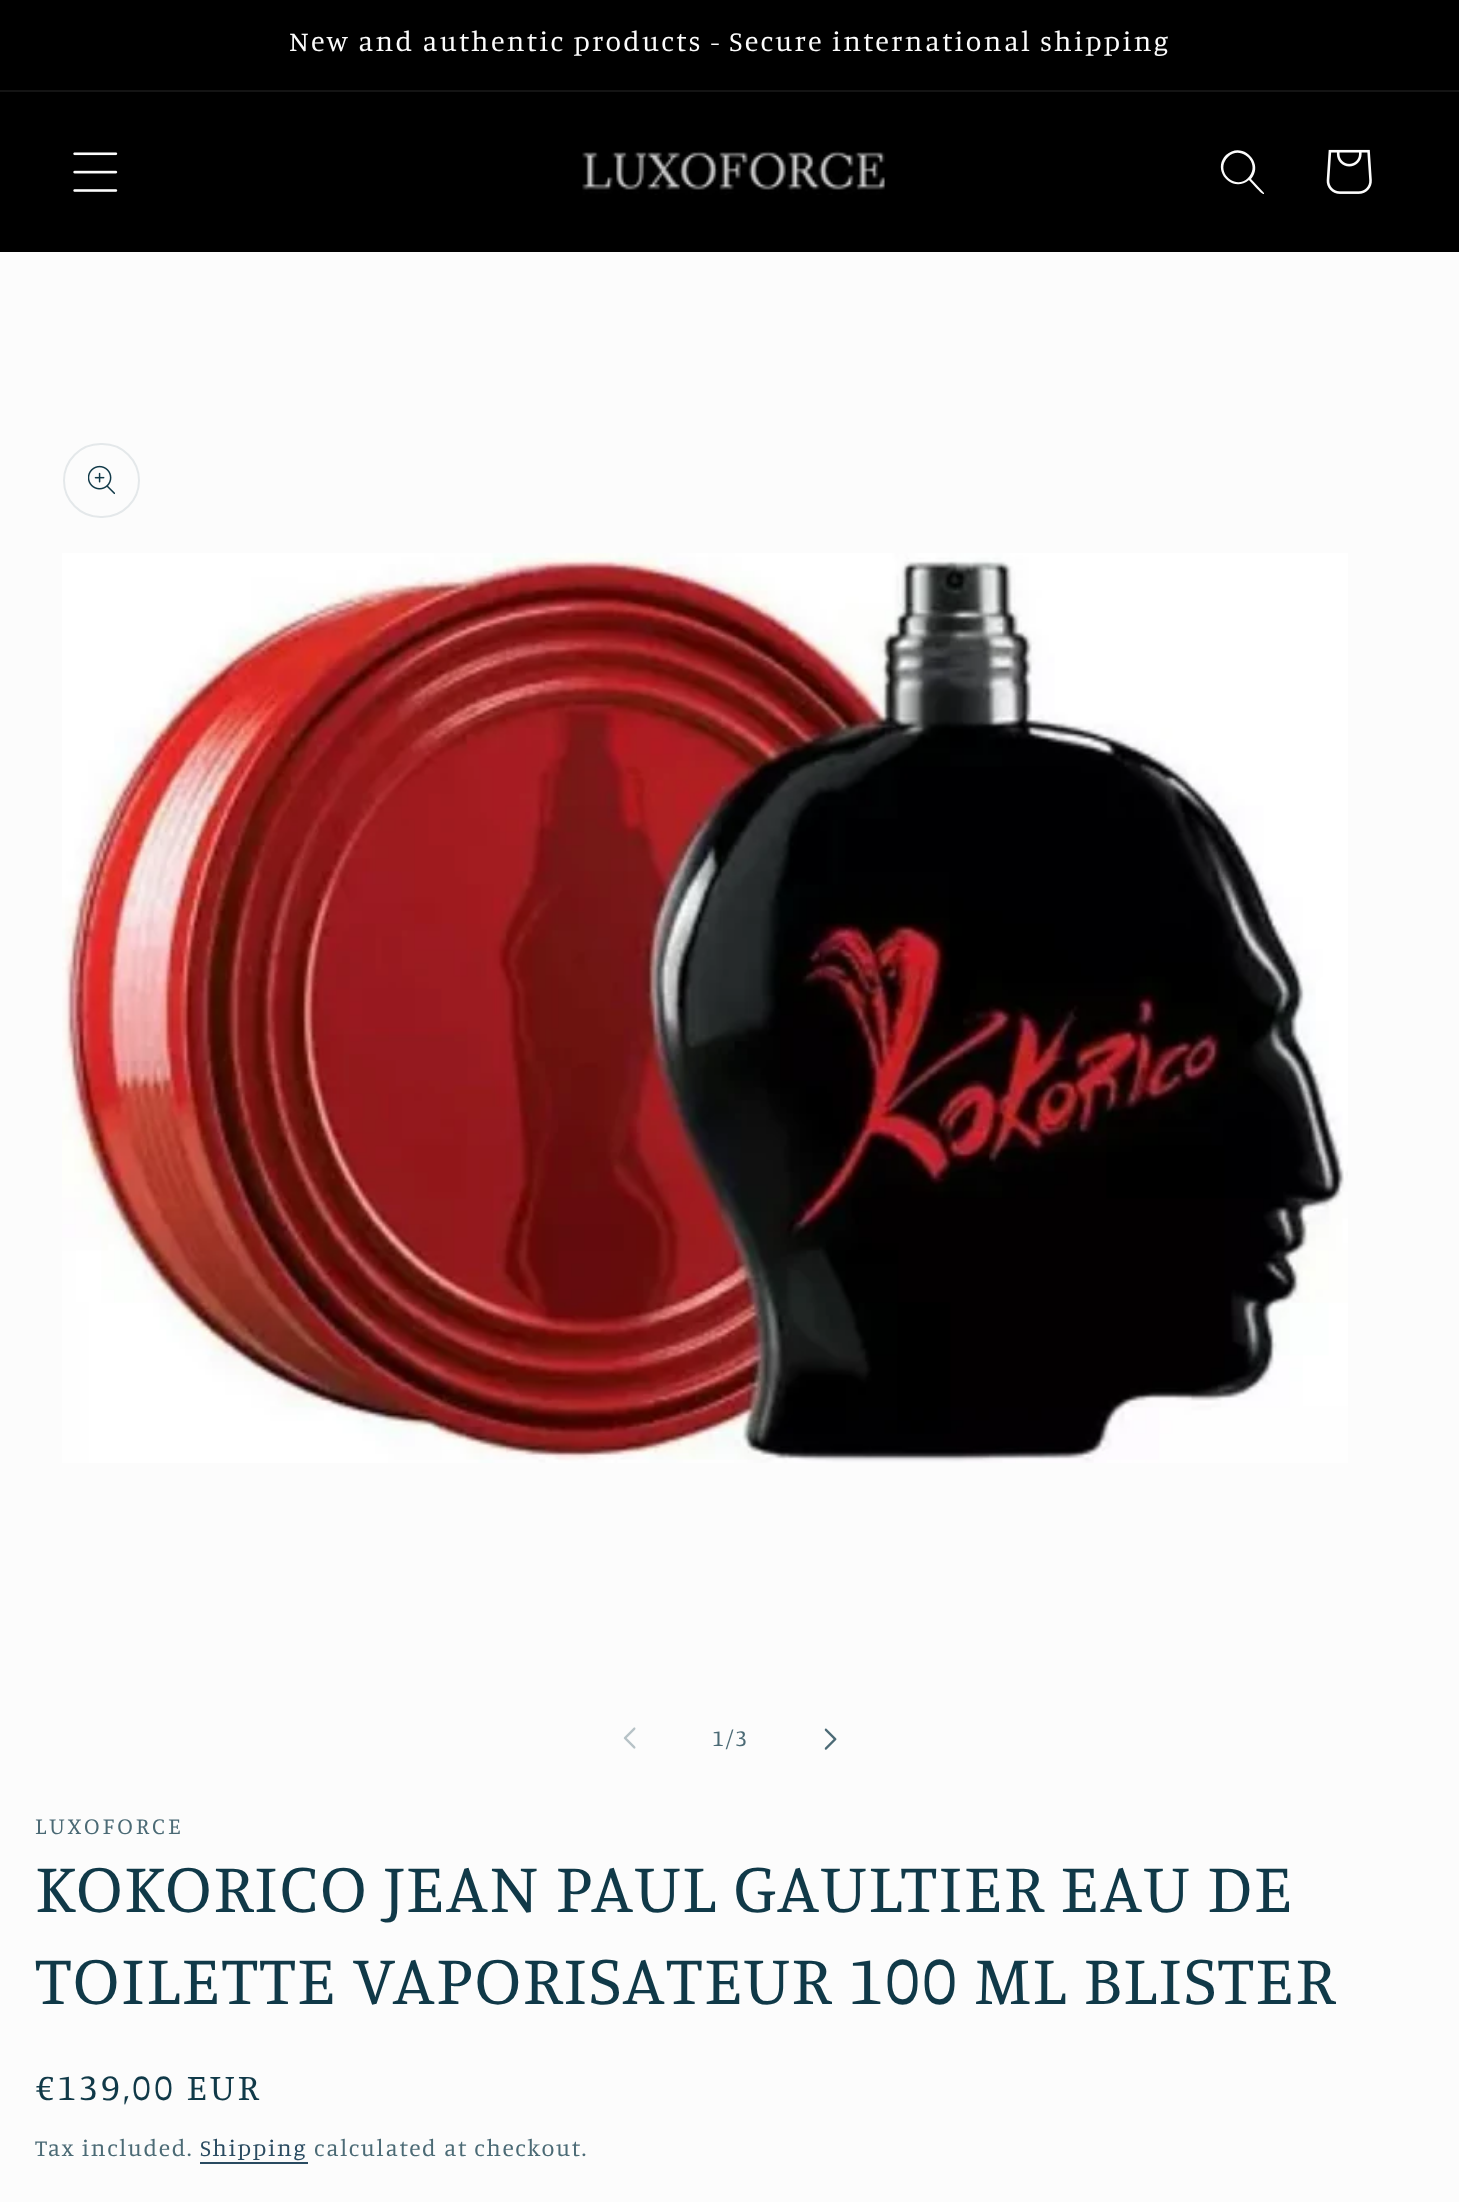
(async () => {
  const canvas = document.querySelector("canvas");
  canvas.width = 1459;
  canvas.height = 2202;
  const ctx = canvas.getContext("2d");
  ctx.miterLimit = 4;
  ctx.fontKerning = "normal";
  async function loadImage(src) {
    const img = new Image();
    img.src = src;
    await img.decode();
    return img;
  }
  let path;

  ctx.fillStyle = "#fcfcfc";
  ctx.fillRect(0, 0, 1459, 2202);
  for (const [x, y, w, h, color] of [
    [0, 0, 1459, 90, "#000000"],
    [0, 90, 1459, 2, "#141414"],
    [0, 92, 1459, 160, "#000000"],
  ]) {
    ctx.fillStyle = color;
    ctx.fillRect(x, y, w, h);
  }
  ctx.drawImage(await loadImage("img/1.png"), 73, 152, 45, 40);
  ctx.drawImage(await loadImage("img/2.png"), 582, 150, 303, 45);
  ctx.fillStyle = "#fcfcfc";
  path = new Path2D("M1248 178C1235 191 1214 171 1228 157C1241 144 1262 164 1248 178ZM1249 180C1232 194 1211 170 1226 155C1242 140 1265 163 1251 179L1264 193V194C1262 195 1251 182 1249 180Z");
  ctx.fill(path, "evenodd");
  ctx.drawImage(await loadImage("img/3.png"), 1326, 149, 46, 45);
  ctx.beginPath();
  ctx.roundRect(64, 444, 75, 73, 36.5);
  ctx.strokeStyle = "#e4e8ea";
  ctx.lineWidth = 2;
  ctx.stroke();
  ctx.drawImage(await loadImage("img/4.png"), 88, 465, 27, 30);
  ctx.drawImage(await loadImage("img/5.png"), 62, 553, 1286, 910);
  ctx.drawImage(await loadImage("img/6.png"), 623, 1727, 13, 22);
  ctx.drawImage(await loadImage("img/7.png"), 824, 1728, 13, 22);
  ctx.fillStyle = "#2a4b61";
  ctx.fillRect(200, 2162, 108, 2);
  ctx.letterSpacing = "2.35px";
  ctx.font = "28.35px Manuale";
  ctx.fillStyle = "#fcfcfc";
  ctx.fillText("New and authentic products - Secure international shipping", 289, 51);
  ctx.letterSpacing = "1.65px";
  ctx.font = "23.6px Manuale";
  ctx.fillStyle = "#4b6a75";
  ctx.fillText("1/3", 712, 1746);
  ctx.letterSpacing = "3px";
  ctx.fillText("LUXOFORCE", 35, 1834);
  ctx.letterSpacing = "1.4px";
  ctx.font = "70.9px Manuale";
  ctx.fillStyle = "#103948";
  ctx.fillText("KOKORICO JEAN PAUL GAULTIER EAU DE", 35, 1912);
  ctx.fillText("TOILETTE VAPORISATEUR 100 ML BLISTER", 35, 2004);
  ctx.letterSpacing = "3px";
  ctx.font = "37.75px Manuale";
  ctx.fillText("€139,00 EUR", 35, 2100);
  ctx.letterSpacing = "1.65px";
  ctx.font = "23.6px Manuale";
  ctx.fillStyle = "#4b6a75";
  ctx.fillText("Tax included.", 35, 2156);
  ctx.fillStyle = "#2a4b61";
  ctx.fillText("Shipping", 200, 2156);
  ctx.fillStyle = "#4b6a75";
  ctx.fillText("calculated at checkout.", 314, 2156);
})();
